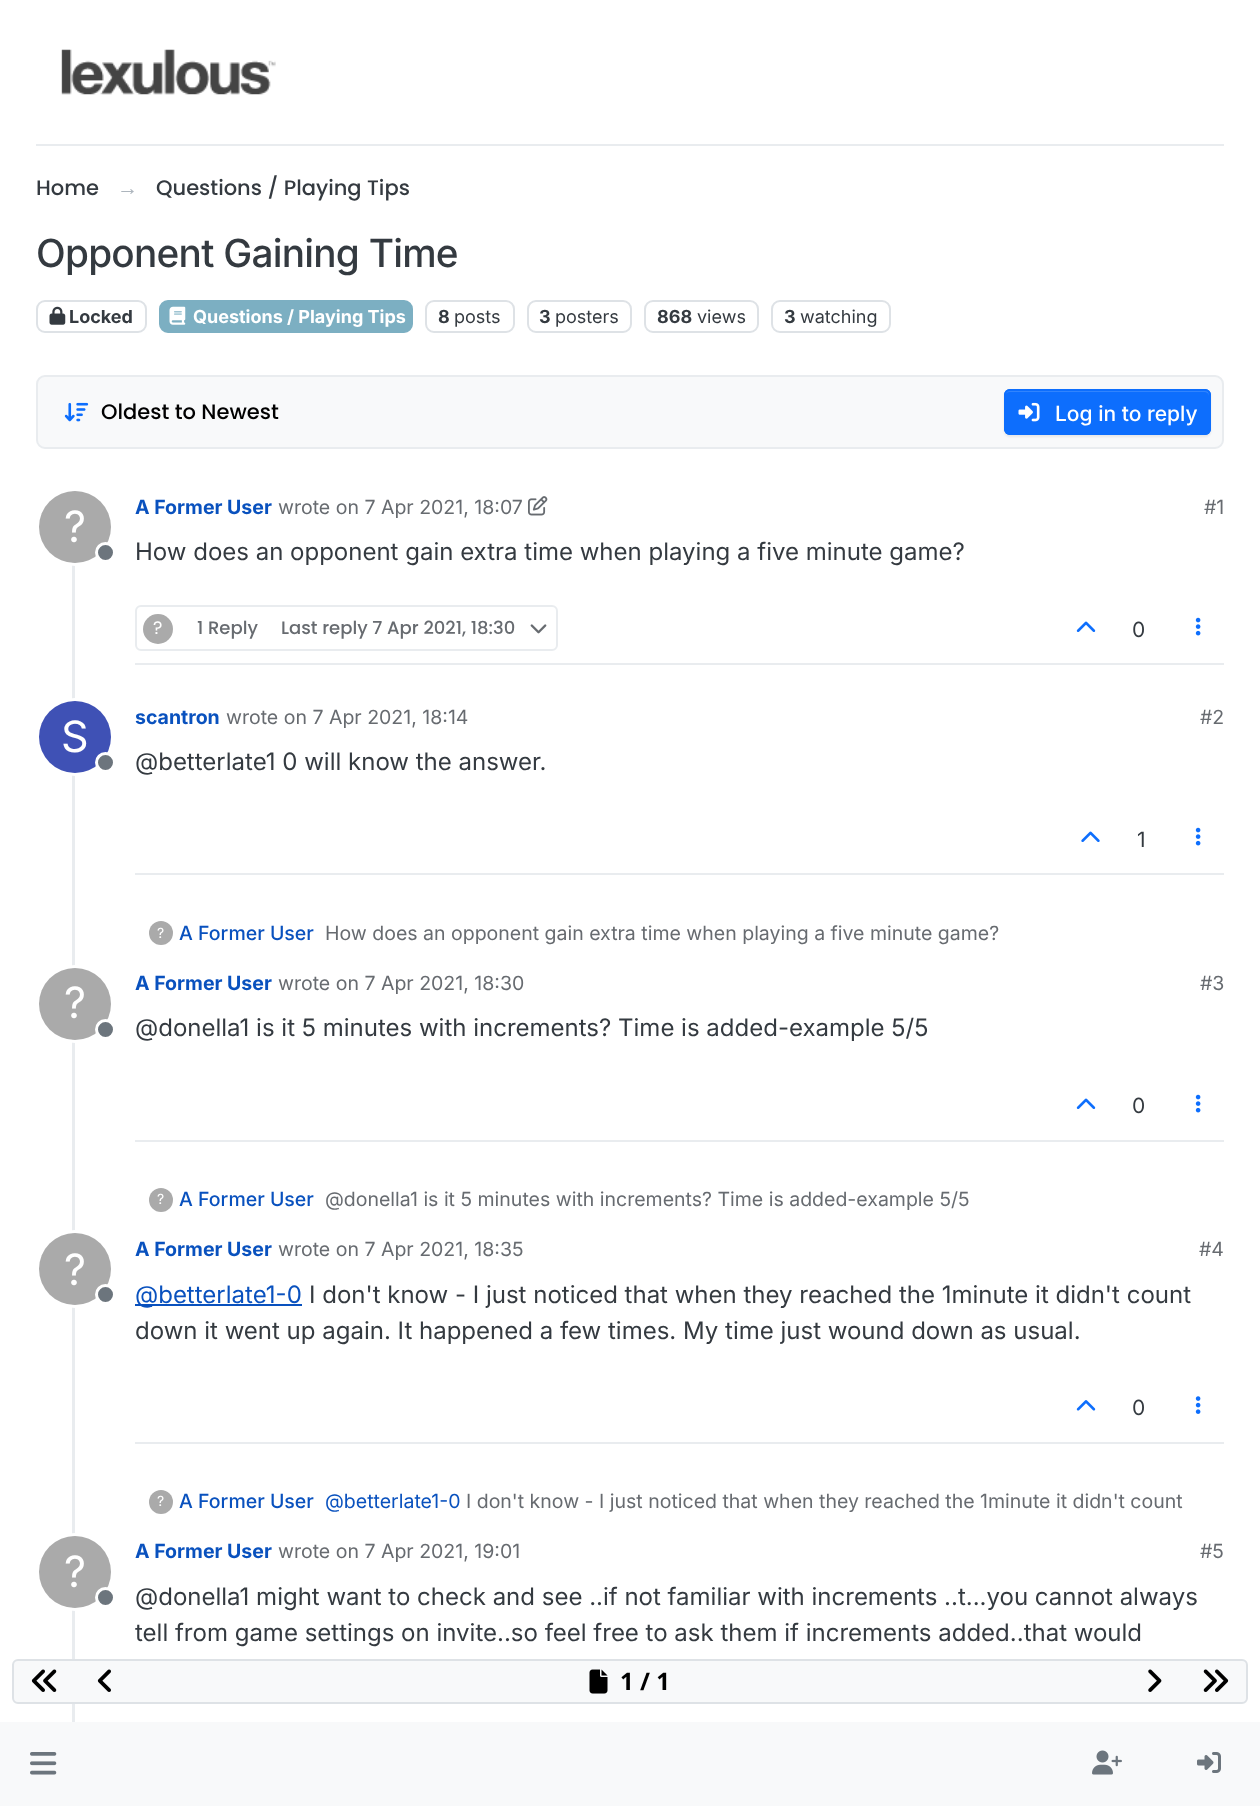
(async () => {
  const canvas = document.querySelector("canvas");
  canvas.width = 1260;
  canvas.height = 1806;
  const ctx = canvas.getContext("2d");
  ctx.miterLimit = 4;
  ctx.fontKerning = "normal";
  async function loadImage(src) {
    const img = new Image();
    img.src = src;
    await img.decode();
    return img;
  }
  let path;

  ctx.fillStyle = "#ffffff";
  ctx.fillRect(0, 0, 1260, 1806);
  ctx.fillStyle = "#e9ecef";
  ctx.fillRect(36, 144, 1188, 2);
  ctx.drawImage(await loadImage("img/1.png"), 61, 49, 215, 46);
  ctx.beginPath();
  ctx.roundRect(37, 301, 109, 31, 8);
  ctx.strokeStyle = "#dee2e6";
  ctx.lineWidth = 2;
  ctx.stroke();
  ctx.drawImage(await loadImage("img/2.png"), 49, 306, 17, 19);
  ctx.fillStyle = "#7cafc2";
  ctx.beginPath();
  ctx.roundRect(160, 301, 252, 31, 8);
  ctx.fill();
  ctx.strokeStyle = "#7cafc2";
  ctx.stroke();
  ctx.drawImage(await loadImage("img/3.png"), 169, 306, 17, 19);
  ctx.beginPath();
  ctx.roundRect(426, 301, 88, 31, 8);
  ctx.strokeStyle = "#dee2e6";
  ctx.stroke();
  ctx.beginPath();
  ctx.roundRect(528, 301, 103, 31, 8);
  ctx.stroke();
  ctx.beginPath();
  ctx.roundRect(645, 301, 113, 31, 8);
  ctx.stroke();
  ctx.beginPath();
  ctx.roundRect(772, 301, 118, 31, 8);
  ctx.stroke();
  ctx.fillStyle = "#f8f9fa";
  ctx.beginPath();
  ctx.roundRect(37, 376, 1186, 72, 8);
  ctx.fill();
  ctx.strokeStyle = "#e9ecef";
  ctx.stroke();
  ctx.drawImage(await loadImage("img/4.png"), 64, 402, 25, 20);
  ctx.fillStyle = "rgba(0, 0, 0, 0.07)";
  ctx.filter = "blur(1px)";
  ctx.beginPath();
  ctx.roundRect(1004, 390, 207, 47, 6);
  ctx.fill();
  ctx.filter = "none";
  ctx.fillStyle = "#0d6efd";
  ctx.beginPath();
  ctx.roundRect(1004, 389, 207, 46, 6);
  ctx.fill();
  ctx.fillStyle = "#3184fd";
  path = new Path2D("M1010 392H1204C1207 392 1209 394 1209 396V395C1209 392 1207 390 1204 390H1010C1007 390 1005 392 1005 395V396C1005 394 1007 392 1010 392Z");
  ctx.fill(path);
  ctx.beginPath();
  ctx.roundRect(1005, 390, 205, 44, 5);
  ctx.strokeStyle = "#0d6efd";
  ctx.stroke();
  ctx.drawImage(await loadImage("img/5.png"), 1018, 402, 22, 20);
  ctx.fillStyle = "#e9ecef";
  ctx.fillRect(72, 491, 3, 1231);
  ctx.beginPath();
  ctx.arc(75, 527, 37.5, 0, Math.PI * 2);
  ctx.strokeStyle = "#ffffff";
  ctx.lineWidth = 3;
  ctx.stroke();
  ctx.fillStyle = "#aaaaaa";
  ctx.beginPath();
  ctx.arc(75, 527, 36, 0, Math.PI * 2);
  ctx.fill();
  ctx.fillStyle = "#6c757d";
  ctx.beginPath();
  ctx.arc(105.5, 552.5, 9, 0, Math.PI * 2);
  ctx.fill();
  ctx.stroke();
  ctx.drawImage(await loadImage("img/6.png"), 528, 496, 20, 20);
  ctx.fillStyle = "#e9ecef";
  ctx.fillRect(135, 663, 1089, 2);
  ctx.beginPath();
  ctx.roundRect(136, 606, 421, 44, 5);
  ctx.strokeStyle = "#e9ecef";
  ctx.lineWidth = 2;
  ctx.stroke();
  ctx.fillStyle = "#aaaaaa";
  ctx.beginPath();
  ctx.arc(158, 629, 15, 0, Math.PI * 2);
  ctx.fill();
  ctx.drawImage(await loadImage("img/7.png"), 530, 624, 17, 10);
  ctx.drawImage(await loadImage("img/8.png"), 1076, 621, 20, 11);
  ctx.drawImage(await loadImage("img/9.png"), 1195, 617, 6, 19);
  ctx.beginPath();
  ctx.arc(75, 737, 37.5, 0, Math.PI * 2);
  ctx.strokeStyle = "#ffffff";
  ctx.lineWidth = 3;
  ctx.stroke();
  ctx.fillStyle = "#3f51b5";
  ctx.beginPath();
  ctx.arc(75, 737, 36, 0, Math.PI * 2);
  ctx.fill();
  ctx.fillStyle = "#6c757d";
  ctx.beginPath();
  ctx.arc(105.5, 762.5, 9, 0, Math.PI * 2);
  ctx.fill();
  ctx.stroke();
  ctx.fillStyle = "#e9ecef";
  ctx.fillRect(135, 873, 1089, 2);
  ctx.drawImage(await loadImage("img/10.png"), 1081, 831, 19, 11);
  ctx.drawImage(await loadImage("img/9.png"), 1195, 827, 6, 19);
  ctx.fillStyle = "#aaaaaa";
  ctx.beginPath();
  ctx.arc(161, 933, 12, 0, Math.PI * 2);
  ctx.fill();
  ctx.beginPath();
  ctx.arc(75, 1004, 37.5, 0, Math.PI * 2);
  ctx.stroke();
  ctx.beginPath();
  ctx.arc(75, 1004, 36, 0, Math.PI * 2);
  ctx.fill();
  ctx.fillStyle = "#6c757d";
  ctx.beginPath();
  ctx.arc(105.5, 1029.5, 9, 0, Math.PI * 2);
  ctx.fill();
  ctx.stroke();
  ctx.fillStyle = "#e9ecef";
  ctx.fillRect(135, 1140, 1089, 2);
  ctx.drawImage(await loadImage("img/8.png"), 1076, 1098, 20, 11);
  ctx.drawImage(await loadImage("img/9.png"), 1195, 1094, 6, 19);
  ctx.fillStyle = "#aaaaaa";
  ctx.beginPath();
  ctx.arc(161, 1200, 12, 0, Math.PI * 2);
  ctx.fill();
  ctx.beginPath();
  ctx.arc(75, 1269, 37.5, 0, Math.PI * 2);
  ctx.stroke();
  ctx.beginPath();
  ctx.arc(75, 1269, 36, 0, Math.PI * 2);
  ctx.fill();
  ctx.fillStyle = "#6c757d";
  ctx.beginPath();
  ctx.arc(105.5, 1294.5, 9, 0, Math.PI * 2);
  ctx.fill();
  ctx.stroke();
  ctx.fillStyle = "#0951be";
  ctx.fillRect(135, 1304, 167, 2);
  ctx.fillStyle = "#e9ecef";
  ctx.fillRect(135, 1442, 1089, 2);
  ctx.drawImage(await loadImage("img/11.png"), 1076, 1400, 20, 11);
  ctx.drawImage(await loadImage("img/12.png"), 1195, 1396, 6, 18);
  ctx.fillStyle = "#aaaaaa";
  ctx.beginPath();
  ctx.arc(161, 1502, 12, 0, Math.PI * 2);
  ctx.fill();
  ctx.beginPath();
  ctx.arc(75, 1572, 37.5, 0, Math.PI * 2);
  ctx.stroke();
  ctx.beginPath();
  ctx.arc(75, 1572, 36, 0, Math.PI * 2);
  ctx.fill();
  ctx.fillStyle = "#6c757d";
  ctx.beginPath();
  ctx.arc(105.5, 1597.5, 9, 0, Math.PI * 2);
  ctx.fill();
  ctx.stroke();
  ctx.fillStyle = "#f8f9fa";
  ctx.beginPath();
  ctx.roundRect(13, 1660, 1234, 43, 5);
  ctx.fill();
  ctx.strokeStyle = "#dee2e6";
  ctx.lineWidth = 2;
  ctx.stroke();
  ctx.drawImage(await loadImage("img/13.png"), 31, 1669, 26, 23);
  ctx.drawImage(await loadImage("img/14.png"), 97, 1669, 14, 23);
  ctx.drawImage(await loadImage("img/15.png"), 589, 1669, 19, 25);
  ctx.drawImage(await loadImage("img/16.png"), 1148, 1669, 14, 23);
  ctx.drawImage(await loadImage("img/17.png"), 1203, 1669, 26, 23);
  ctx.fillRect(0, 1722, 1260, 84);
  ctx.drawImage(await loadImage("img/18.png"), 30, 1752, 27, 23);
  ctx.drawImage(await loadImage("img/19.png"), 1092, 1750, 30, 25);
  ctx.drawImage(await loadImage("img/20.png"), 1197, 1752, 24, 21);
  ctx.font = "500 21px Poppins";
  ctx.fillStyle = "#343a40";
  ctx.fillText("Home", 36, 195);
  ctx.font = "21px Liberation Sans";
  ctx.fillStyle = "#adb5bd";
  ctx.fillText("→", 117, 195);
  ctx.font = "500 21px Poppins";
  ctx.fillStyle = "#343a40";
  ctx.fillText("Questions / Playing Tips", 156, 195);
  ctx.letterSpacing = "-0.75px";
  ctx.font = "500 38.75px Inter";
  ctx.fillText("Opponent Gaining Time", 36, 267);
  ctx.letterSpacing = "0px";
  ctx.font = "bold 18px Inter";
  ctx.fillText("Locked", 69, 323);
  ctx.fillStyle = "#ffffff";
  ctx.fillText("Questions / Playing Tips", 193, 323);
  ctx.fillStyle = "#343a40";
  ctx.fillText("8", 438, 323);
  ctx.font = "18px Inter";
  ctx.fillText("posts", 454, 323);
  ctx.font = "bold 18px Inter";
  ctx.fillText("3", 539, 323);
  ctx.font = "18px Inter";
  ctx.fillText("posters", 555, 323);
  ctx.font = "bold 18px Inter";
  ctx.fillText("868", 657, 323);
  ctx.font = "18px Inter";
  ctx.fillText("views", 697, 323);
  ctx.font = "bold 18px Inter";
  ctx.fillText("3", 784, 323);
  ctx.font = "18px Inter";
  ctx.fillText("watching", 800, 323);
  ctx.font = "500 21px Poppins";
  ctx.fillStyle = "#000000";
  ctx.fillText("Oldest to Newest", 101, 419);
  ctx.font = "500 21px Inter";
  ctx.fillStyle = "#ffffff";
  ctx.fillText("Log in to reply", 1055, 421);
  ctx.font = "43px Inter";
  ctx.fillText("?", 64, 542);
  ctx.font = "bold 19.5px Inter";
  ctx.fillStyle = "#0951be";
  ctx.fillText("A Former User", 135, 514);
  ctx.font = "19.5px Inter";
  ctx.fillStyle = "#676b70";
  ctx.fillText("wrote on 7 Apr 2021, 18:07", 278, 514);
  ctx.fillText("#1", 1204, 514);
  ctx.font = "24px Inter";
  ctx.fillStyle = "#343a40";
  ctx.fillText("How does an opponent gain extra time when playing a five minute game?", 135, 560);
  ctx.font = "18px Poppins";
  ctx.fillStyle = "#ffffff";
  ctx.fillText("?", 153, 634);
  ctx.font = "500 18px Poppins";
  ctx.fillStyle = "#676b70";
  ctx.fillText("1 Reply", 197, 634);
  ctx.fillText("Last reply 7 Apr 2021, 18:30", 281, 634);
  ctx.font = "21px Inter";
  ctx.fillStyle = "#343a40";
  ctx.fillText("0", 1132, 637);
  ctx.font = "43px Inter";
  ctx.fillStyle = "#ffffff";
  ctx.fillText("S", 61, 752);
  ctx.font = "bold 19.5px Inter";
  ctx.fillStyle = "#0951be";
  ctx.fillText("scantron", 135, 724);
  ctx.font = "19.5px Inter";
  ctx.fillStyle = "#676b70";
  ctx.fillText("wrote on 7 Apr 2021, 18:14", 226, 724);
  ctx.fillText("#2", 1200, 724);
  ctx.font = "24px Inter";
  ctx.fillStyle = "#343a40";
  ctx.fillText("@betterlate1 0 will know the answer.", 135, 770);
  ctx.font = "21px Inter";
  ctx.fillText("1", 1137, 847);
  ctx.font = "14px Inter";
  ctx.fillStyle = "#ffffff";
  ctx.fillText("?", 157, 938);
  ctx.font = "500 19.5px Inter";
  ctx.fillStyle = "#0951be";
  ctx.fillText("A Former User", 179, 940);
  ctx.font = "19.5px Inter";
  ctx.fillStyle = "#676b70";
  ctx.fillText("How does an opponent gain extra time when playing a five minute game?", 325, 940);
  ctx.font = "43px Inter";
  ctx.fillStyle = "#ffffff";
  ctx.fillText("?", 64, 1018);
  ctx.font = "bold 19.5px Inter";
  ctx.fillStyle = "#0951be";
  ctx.fillText("A Former User", 135, 990);
  ctx.font = "19.5px Inter";
  ctx.fillStyle = "#676b70";
  ctx.fillText("wrote on 7 Apr 2021, 18:30", 278, 990);
  ctx.fillText("#3", 1200, 990);
  ctx.font = "24px Inter";
  ctx.fillStyle = "#343a40";
  ctx.fillText("@donella1 is it 5 minutes with increments? Time is added-example 5/5", 135, 1036);
  ctx.font = "21px Inter";
  ctx.fillText("0", 1132, 1113);
  ctx.font = "14px Inter";
  ctx.fillStyle = "#ffffff";
  ctx.fillText("?", 157, 1204);
  ctx.font = "500 19.5px Inter";
  ctx.fillStyle = "#0951be";
  ctx.fillText("A Former User", 179, 1206);
  ctx.font = "19.5px Inter";
  ctx.fillStyle = "#676b70";
  ctx.fillText("@donella1 is it 5 minutes with increments? Time is added-example 5/5", 325, 1206);
  ctx.font = "43px Inter";
  ctx.fillStyle = "#ffffff";
  ctx.fillText("?", 64, 1285);
  ctx.font = "bold 19.5px Inter";
  ctx.fillStyle = "#0951be";
  ctx.fillText("A Former User", 135, 1256);
  ctx.font = "19.5px Inter";
  ctx.fillStyle = "#676b70";
  ctx.fillText("wrote on 7 Apr 2021, 18:35", 278, 1256);
  ctx.fillText("#4", 1199, 1256);
  ctx.font = "24px Inter";
  ctx.fillStyle = "#0951be";
  ctx.fillText("@betterlate1-0", 135, 1303);
  ctx.fillStyle = "#343a40";
  ctx.fillText("I don't know - I just noticed that when they reached the 1minute it didn't count", 309, 1303);
  ctx.fillText("down it went up again. It happened a few times. My time just wound down as usual.", 135, 1339);
  ctx.font = "21px Inter";
  ctx.fillText("0", 1132, 1415);
  ctx.font = "14px Inter";
  ctx.fillStyle = "#ffffff";
  ctx.fillText("?", 157, 1506);
  ctx.font = "500 19.5px Inter";
  ctx.fillStyle = "#0951be";
  ctx.fillText("A Former User", 179, 1508);
  ctx.font = "19.5px Inter";
  ctx.fillText("@betterlate1-0", 325, 1508);
  ctx.fillStyle = "#676b70";
  ctx.fillText("I don't know - I just noticed that when they reached the 1minute it didn't count", 466, 1508);
  ctx.font = "43px Inter";
  ctx.fillStyle = "#ffffff";
  ctx.fillText("?", 64, 1587);
  ctx.font = "bold 19.5px Inter";
  ctx.fillStyle = "#0951be";
  ctx.fillText("A Former User", 135, 1558);
  ctx.font = "19.5px Inter";
  ctx.fillStyle = "#676b70";
  ctx.fillText("wrote on 7 Apr 2021, 19:01", 278, 1558);
  ctx.fillText("#5", 1200, 1558);
  ctx.font = "24px Inter";
  ctx.fillStyle = "#343a40";
  ctx.fillText("@donella1 might want to check and see ..if not familiar with increments ..t...you cannot always", 135, 1605);
  ctx.fillText("tell from game settings on invite..so feel free to ask them if increments added..that would", 135, 1641);
  ctx.font = "bold 24px Noto Sans";
  ctx.fillStyle = "#000000";
  ctx.fillText("1 / 1", 620, 1690);
})();
